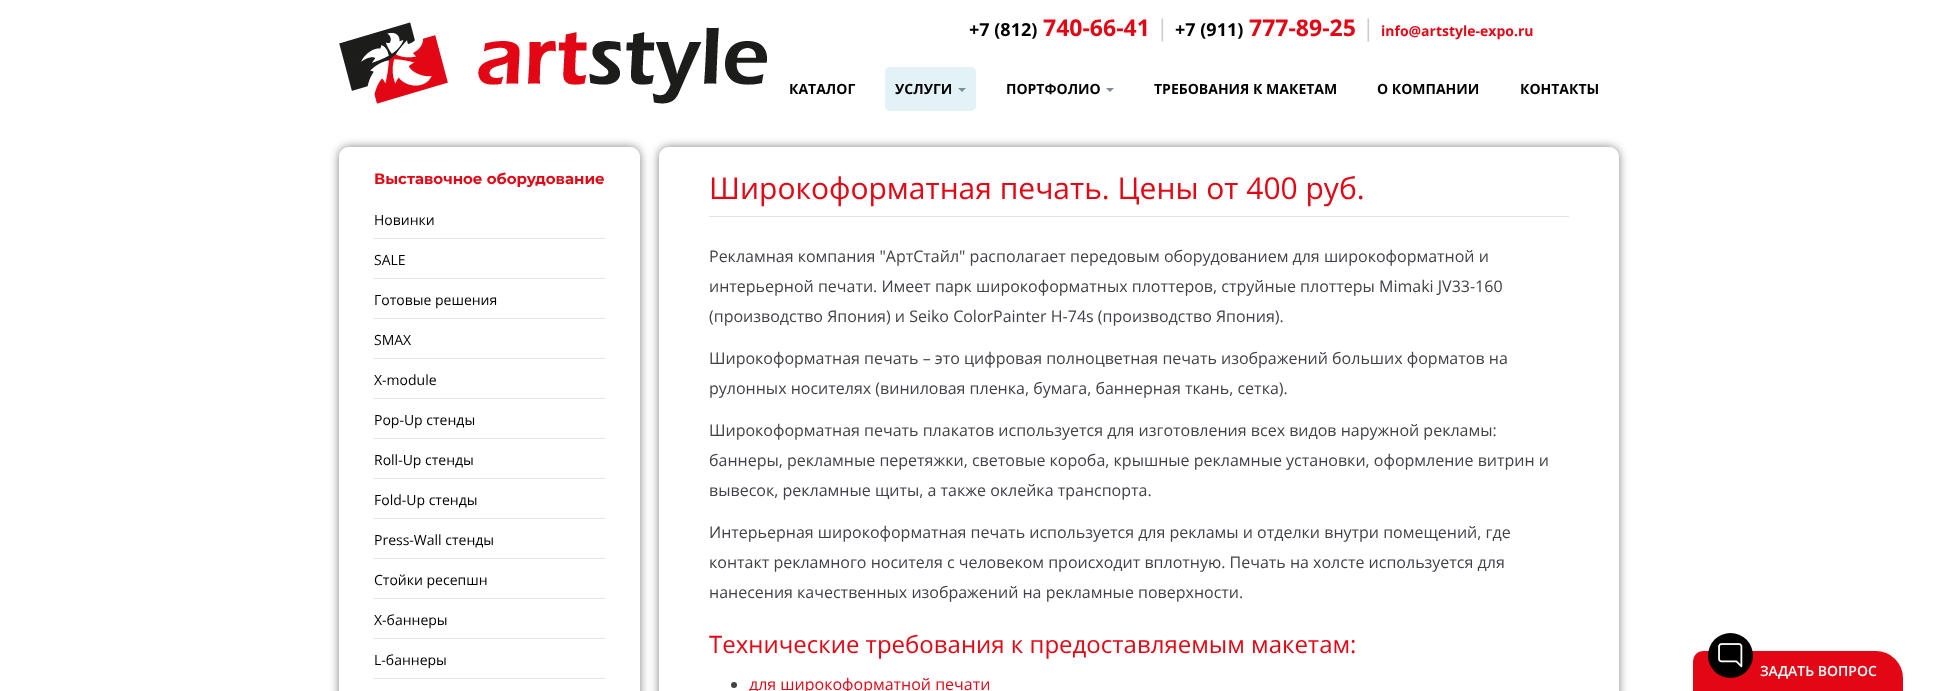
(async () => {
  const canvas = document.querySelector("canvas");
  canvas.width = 1958;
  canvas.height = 691;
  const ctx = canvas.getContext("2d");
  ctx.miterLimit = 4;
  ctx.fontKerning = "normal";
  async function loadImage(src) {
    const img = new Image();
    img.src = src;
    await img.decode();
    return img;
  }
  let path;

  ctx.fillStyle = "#ffffff";
  ctx.fillRect(0, 0, 1958, 691);
  ctx.drawImage(await loadImage("img/1.png"), 339, 22, 428, 82);
  ctx.fillStyle = "#e3f2f7";
  ctx.beginPath();
  ctx.roundRect(885, 67, 91, 44, 5);
  ctx.fill();
  ctx.fillStyle = "#7a8f99";
  path = new Path2D("M958 88H966L962 92Z");
  ctx.fill(path);
  path = new Path2D("M1106 88H1114L1110 92Z");
  ctx.fill(path);
  ctx.save();
  path = new Path2D("M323 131H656V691H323ZM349 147H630C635.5 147 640 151.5 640 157V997C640 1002.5 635.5 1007 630 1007H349C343.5 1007 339 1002.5 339 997V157C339 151.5 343.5 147 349 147Z");
  ctx.clip(path, "evenodd");
  ctx.fillStyle = "rgba(0, 0, 0, 0.5)";
  ctx.filter = "blur(5px)";
  ctx.beginPath();
  ctx.roundRect(339, 147, 301, 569, 10);
  ctx.fill();
  ctx.filter = "none";
  ctx.restore();
  ctx.drawImage(await loadImage("img/2.png"), 339, 147, 301, 9);
  for (const [x, y, w, h, color] of [
    [374, 238, 231, 1, "#e1e4e6"],
    [374, 278, 231, 1, "#e1e4e6"],
    [374, 318, 231, 1, "#e1e4e6"],
    [374, 358, 231, 1, "#e1e4e6"],
    [374, 398, 231, 1, "#e1e4e6"],
    [374, 438, 231, 1, "#e1e4e6"],
    [374, 478, 231, 1, "#e1e4e6"],
    [374, 518, 231, 1, "#e1e4e6"],
    [374, 558, 231, 1, "#e1e4e6"],
    [374, 598, 231, 1, "#e1e4e6"],
    [374, 638, 231, 1, "#e1e4e6"],
    [374, 678, 231, 1, "#e1e4e6"],
  ]) {
    ctx.fillStyle = color;
    ctx.fillRect(x, y, w, h);
  }
  ctx.save();
  path = new Path2D("M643 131H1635V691H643ZM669 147H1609C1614.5 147 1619 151.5 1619 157V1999C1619 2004.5 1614.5 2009 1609 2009H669C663.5 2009 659 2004.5 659 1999V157C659 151.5 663.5 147 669 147Z");
  ctx.clip(path, "evenodd");
  ctx.fillStyle = "rgba(0, 0, 0, 0.5)";
  ctx.filter = "blur(5px)";
  ctx.beginPath();
  ctx.roundRect(659, 147, 960, 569, 10);
  ctx.fill();
  ctx.filter = "none";
  ctx.restore();
  ctx.drawImage(await loadImage("img/3.png"), 659, 147, 960, 9);
  ctx.fillRect(709, 216, 860, 1);
  ctx.fillStyle = "#424147";
  ctx.beginPath();
  ctx.arc(734, 685, 3, 0, Math.PI * 2);
  ctx.fill();
  ctx.fillStyle = "#e30614";
  ctx.beginPath();
  ctx.roundRect(1693, 651, 210, 40, [10, 27, 0, 0]);
  ctx.fill();
  ctx.fillStyle = "#000000";
  ctx.beginPath();
  ctx.arc(1730.5, 655.5, 22.5, 0, Math.PI * 2);
  ctx.fill();
  ctx.drawImage(await loadImage("img/4.png"), 1718, 643, 25, 25);
  ctx.font = "bold 18px Open Sans";
  ctx.fillText("+7 (812)", 969, 36);
  ctx.font = "bold 23px Open Sans";
  ctx.fillStyle = "#e30614";
  ctx.fillText("740-66-41", 1043, 36);
  ctx.font = "23px Open Sans";
  ctx.fillStyle = "#cccccc";
  ctx.fillText("|", 1156, 36);
  ctx.font = "bold 18px Open Sans";
  ctx.fillStyle = "#000000";
  ctx.fillText("+7 (911)", 1175, 36);
  ctx.font = "bold 23px Open Sans";
  ctx.fillStyle = "#e30614";
  ctx.fillText("777-89-25", 1249, 36);
  ctx.font = "23px Open Sans";
  ctx.fillStyle = "#cccccc";
  ctx.fillText("|", 1362, 36);
  ctx.font = "bold 14px Open Sans";
  ctx.fillStyle = "#e30614";
  ctx.fillText("info@artstyle-expo.ru", 1381, 36);
  ctx.fillStyle = "#000000";
  for (const [text, x, y] of [
    ["КАТАЛОГ", 789, 94],
    ["УСЛУГИ", 895, 94],
    ["ПОРТФОЛИО", 1006, 94],
    ["ТРЕБОВАНИЯ К МАКЕТАМ", 1154, 94],
    ["О КОМПАНИИ", 1377, 94],
    ["КОНТАКТЫ", 1520, 94],
  ]) {
    ctx.fillText(text, x, y);
  }
  ctx.font = "bold 15px Montserrat";
  ctx.fillStyle = "#e30614";
  ctx.fillText("Выставочное оборудование", 374, 184);
  ctx.font = "14px Open Sans";
  ctx.fillStyle = "#000000";
  for (const [text, x, y] of [
    ["Новинки", 374, 225],
    ["SALE", 374, 265],
    ["Готовые решения", 374, 305],
    ["SMAX", 374, 345],
    ["X-module", 374, 385],
    ["Pop-Up стенды", 374, 425],
    ["Roll-Up стенды", 374, 465],
    ["Fold-Up стенды", 374, 505],
    ["Press-Wall стенды", 374, 545],
    ["Стойки ресепшн", 374, 585],
    ["X-баннеры", 374, 625],
    ["L-баннеры", 374, 665],
  ]) {
    ctx.fillText(text, x, y);
  }
  ctx.font = "30px Open Sans";
  ctx.fillStyle = "#e30614";
  ctx.fillText("Широкоформатная печать. Цены от 400 руб.", 709, 199);
  ctx.font = "16px Open Sans";
  ctx.fillStyle = "#424147";
  for (const [text, x, y] of [
    ["Рекламная компания \"АртСтайл\" располагает передовым оборудованием для широкоформатной и", 709, 262],
    ["интерьерной печати. Имеет парк широкоформатных плоттеров, струйные плоттеры Mimaki JV33-160", 709, 292],
    ["(производство Япония) и Seiko ColorPainter H-74s (производство Япония).", 709, 322],
    ["Широкоформатная печать – это цифровая полноцветная печать изображений больших форматов на", 709, 364],
    ["рулонных носителях (виниловая пленка, бумага, баннерная ткань, сетка).", 709, 394],
    ["Широкоформатная печать плакатов используется для изготовления всех видов наружной рекламы:", 709, 436],
    ["баннеры, рекламные перетяжки, световые короба, крышные рекламные установки, оформление витрин и", 709, 466],
    ["вывесок, рекламные щиты, а также оклейка транспорта.", 709, 496],
    ["Интерьерная широкоформатная печать используется для рекламы и отделки внутри помещений, где", 709, 538],
    ["контакт рекламного носителя с человеком происходит вплотную. Печать на холсте используется для", 709, 568],
    ["нанесения качественных изображений на рекламные поверхности.", 709, 598],
  ]) {
    ctx.fillText(text, x, y);
  }
  ctx.font = "24px Open Sans";
  ctx.fillStyle = "#e30614";
  ctx.fillText("Технические требования к предоставляемым макетам:", 709, 653);
  ctx.font = "16px Open Sans";
  ctx.fillText("для широкоформатной печати", 749, 690);
  ctx.font = "600 14px Open Sans";
  ctx.fillStyle = "#ffffff";
  ctx.fillText("ЗАДАТЬ ВОПРОС", 1760, 676);
})();
